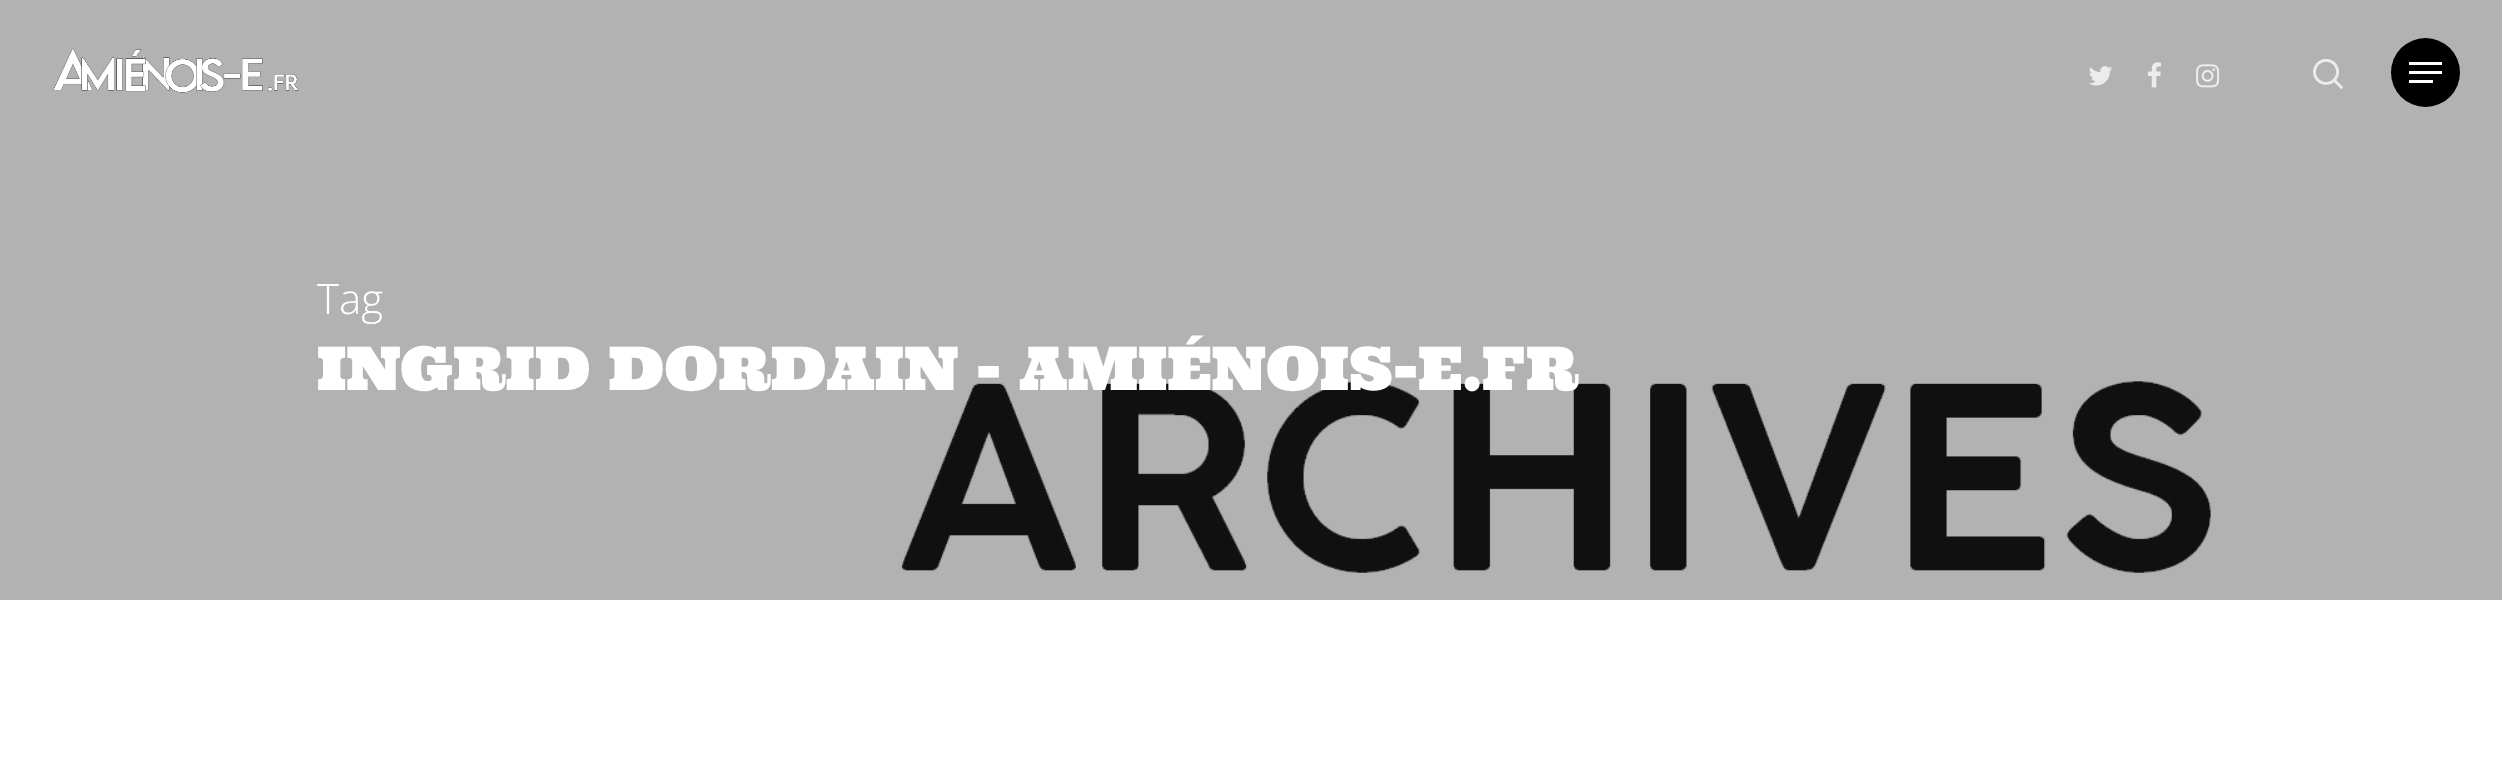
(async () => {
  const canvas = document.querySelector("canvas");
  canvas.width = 2502;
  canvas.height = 778;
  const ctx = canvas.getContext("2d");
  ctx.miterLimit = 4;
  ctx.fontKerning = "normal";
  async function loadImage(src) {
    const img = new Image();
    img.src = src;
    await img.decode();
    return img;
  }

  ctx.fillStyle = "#ffffff";
  ctx.fillRect(0, 0, 2502, 778);
  ctx.drawImage(await loadImage("img/6.png"), 0, 0, 2502, 600);
  ctx.drawImage(await loadImage("img/1.png"), 53, 48, 246, 45);
  ctx.drawImage(await loadImage("img/2.png"), 2089, 66, 24, 20);
  ctx.drawImage(await loadImage("img/3.png"), 2147, 62, 14, 26);
  ctx.drawImage(await loadImage("img/4.png"), 2196, 64, 24, 24);
  ctx.drawImage(await loadImage("img/5.png"), 2313, 58, 30, 31);
  ctx.fillStyle = "#000000";
  ctx.beginPath();
  ctx.arc(2425.5, 72.5, 34.5, 0, Math.PI * 2);
  ctx.fill();
  for (const [x, y, w, h, color] of [
    [2409, 62, 33, 3, "#ffffff"],
    [2409, 80, 24, 3, "#ffffff"],
    [2409, 71, 33, 3, "#ffffff"],
  ]) {
    ctx.fillStyle = color;
    ctx.fillRect(x, y, w, h);
  }
  ctx.font = "300 42px Open Sans";
  ctx.fillText("Tag", 317, 314);
  ctx.font = "60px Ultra";
  ctx.fillText("INGRID DORDAIN - AMIÉNOIS-E.FR", 317, 390);
})();
